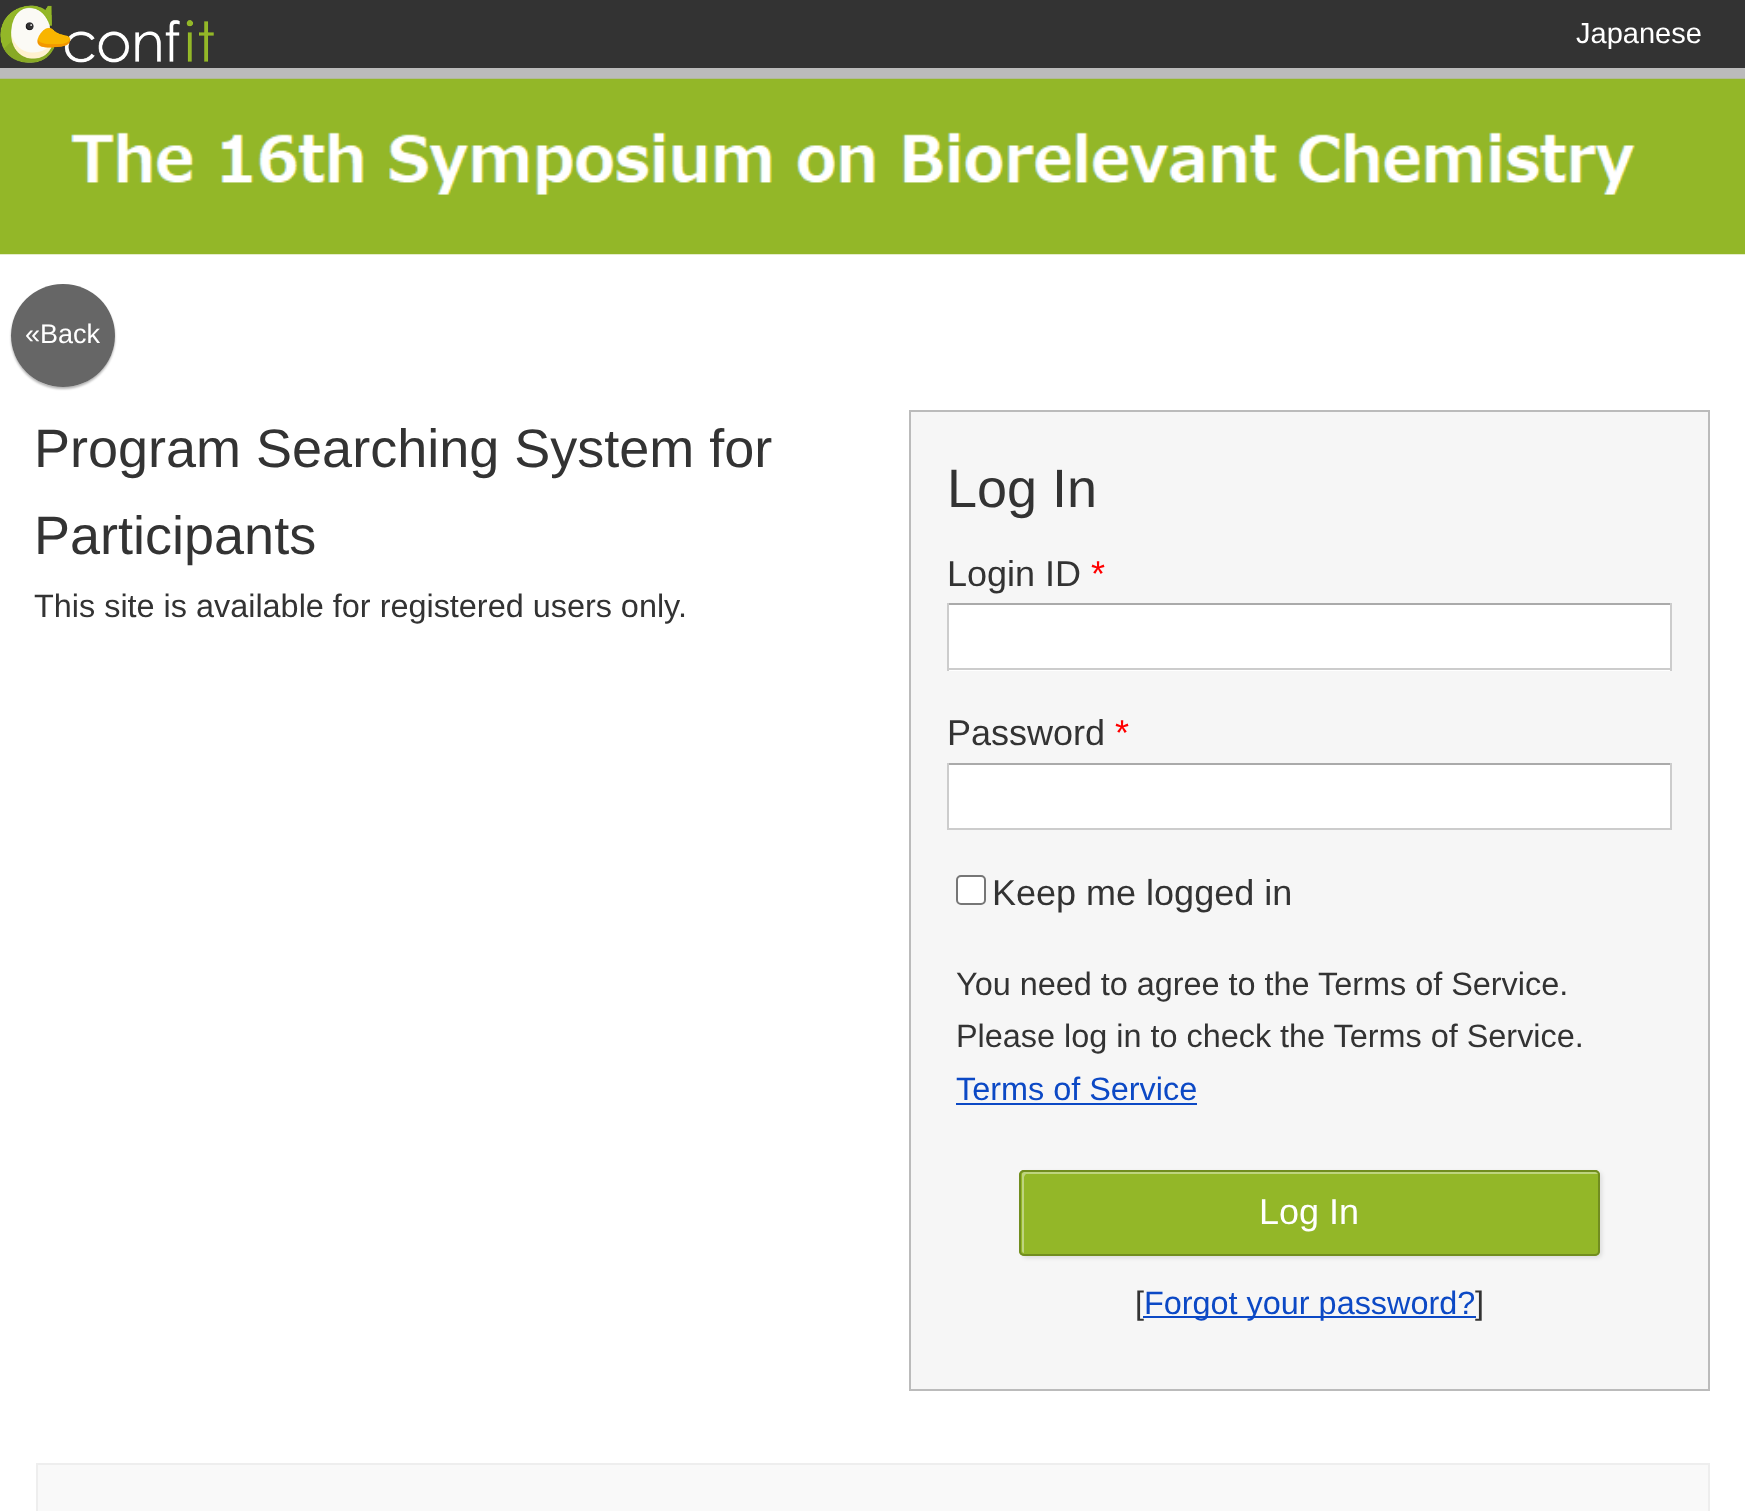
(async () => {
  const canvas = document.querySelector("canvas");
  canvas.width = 1745;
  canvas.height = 1511;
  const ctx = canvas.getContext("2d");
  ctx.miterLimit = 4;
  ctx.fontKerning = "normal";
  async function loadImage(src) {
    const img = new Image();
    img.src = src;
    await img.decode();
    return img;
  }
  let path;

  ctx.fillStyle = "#333333";
  ctx.fillRect(0, 0, 1745, 1511);
  ctx.fillStyle = "#bbbbbb";
  ctx.fillRect(0, 68, 1745, 11);
  ctx.drawImage(await loadImage("img/1.png"), 0, 5, 214, 58);
  ctx.fillStyle = "#ffffff";
  ctx.fillRect(0, 254, 1745, 1257);
  ctx.drawImage(await loadImage("img/2.png"), 0, 78, 1745, 177);
  ctx.save();
  path = new Path2D("M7 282H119V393H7ZM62.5 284H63.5C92 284 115 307 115 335.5C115 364 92 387 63.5 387H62.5C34 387 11 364 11 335.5C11 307 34 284 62.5 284Z");
  ctx.clip(path, "evenodd");
  ctx.fillStyle = "rgba(0, 0, 0, 0.3)";
  ctx.filter = "blur(1px)";
  ctx.beginPath();
  ctx.roundRect(11, 286, 104, 103, 51.5);
  ctx.fill();
  ctx.filter = "none";
  ctx.restore();
  ctx.fillStyle = "rgba(0, 0, 0, 0.6)";
  ctx.beginPath();
  ctx.roundRect(11, 284, 104, 103, 51.5);
  ctx.fill();
  ctx.fillStyle = "#f6f6f6";
  ctx.beginPath();
  ctx.rect(910, 411, 799, 979);
  ctx.fill();
  ctx.strokeStyle = "#bbbbbb";
  ctx.lineWidth = 2;
  ctx.stroke();
  for (const [x, y, w, h, color] of [
    [949, 605, 721, 66, "#ffffff"],
    [947, 603, 725, 2, "#aaaaaa"],
    [1670, 603, 2, 68, "#cccccc"],
    [947, 668, 725, 2, "#cccccc"],
    [947, 603, 2, 68, "#cccccc"],
    [949, 765, 721, 63, "#ffffff"],
    [947, 763, 725, 2, "#aaaaaa"],
    [1670, 763, 2, 67, "#cccccc"],
    [947, 828, 725, 2, "#cccccc"],
    [947, 763, 2, 67, "#cccccc"],
  ]) {
    ctx.fillStyle = color;
    ctx.fillRect(x, y, w, h);
  }
  ctx.fillStyle = "#ffffff";
  ctx.beginPath();
  ctx.roundRect(957, 876, 28, 28, 4);
  ctx.fill();
  ctx.strokeStyle = "#767676";
  ctx.stroke();
  ctx.fillStyle = "#0c49c5";
  ctx.fillRect(956, 1103, 241, 2);
  ctx.fillStyle = "rgba(0, 0, 0, 0.1)";
  ctx.filter = "blur(2px)";
  ctx.beginPath();
  ctx.roundRect(1022, 1172, 580, 86, 5);
  ctx.fill();
  ctx.filter = "none";
  ctx.fillStyle = "#93b728";
  ctx.beginPath();
  ctx.roundRect(1019, 1170, 581, 86, 5);
  ctx.fill();
  ctx.fillStyle = "#bed47e";
  path = new Path2D("M1026 1174H1598C1598 1173 1597 1172 1596 1172H1024C1023 1172 1022 1173 1022 1174V1251C1022 1252 1023 1253 1024 1253V1177L1025 1175Z");
  ctx.fill(path);
  ctx.beginPath();
  ctx.roundRect(1020, 1171, 579, 84, 4);
  ctx.strokeStyle = "#718d1f";
  ctx.stroke();
  ctx.fillStyle = "#f9f9f9";
  ctx.beginPath();
  ctx.rect(37, 1464, 1672, 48);
  ctx.fill();
  ctx.strokeStyle = "#eeeeee";
  ctx.stroke();
  ctx.font = "29px Liberation Sans";
  ctx.fillStyle = "#ffffff";
  ctx.fillText("Japanese", 1576, 43);
  ctx.font = "27px Liberation Sans";
  ctx.fillText("«Back", 25, 343);
  ctx.font = "54px Liberation Sans";
  ctx.fillStyle = "#333333";
  ctx.fillText("Program Searching System for", 34, 467);
  ctx.fillText("Participants", 34, 554);
  ctx.font = "32.4px Liberation Sans";
  ctx.fillText("This site is available for registered users only.", 34, 617);
  ctx.font = "54px Liberation Sans";
  ctx.fillText("Log In", 947, 507);
  ctx.font = "36px Liberation Sans";
  ctx.fillText("Login ID", 947, 586);
  ctx.fillStyle = "#ff0000";
  ctx.fillText("*", 1091, 586);
  ctx.fillStyle = "#333333";
  ctx.fillText("Password", 947, 745);
  ctx.fillStyle = "#ff0000";
  ctx.fillText("*", 1115, 745);
  ctx.fillStyle = "#333333";
  ctx.fillText("Keep me logged in", 992, 905);
  ctx.font = "32.4px Liberation Sans";
  ctx.fillText("You need to agree to the Terms of Service.", 956, 995);
  ctx.fillText("Please log in to check the Terms of Service.", 956, 1047);
  ctx.fillStyle = "#0c49c5";
  ctx.fillText("Terms of Service", 956, 1100);
  ctx.font = "36px Liberation Sans";
  ctx.fillStyle = "#ffffff";
  ctx.fillText("Log In", 1259, 1224);
  ctx.font = "32.4px Liberation Sans";
  ctx.fillStyle = "#333333";
  ctx.fillText("[", 1135, 1314);
  ctx.fillStyle = "#0c49c5";
  ctx.fillRect(1143, 1316, 333, 2);
  ctx.fillText("Forgot your password?", 1144, 1314);
  ctx.fillStyle = "#333333";
  ctx.fillText("]", 1475, 1314);
})();
